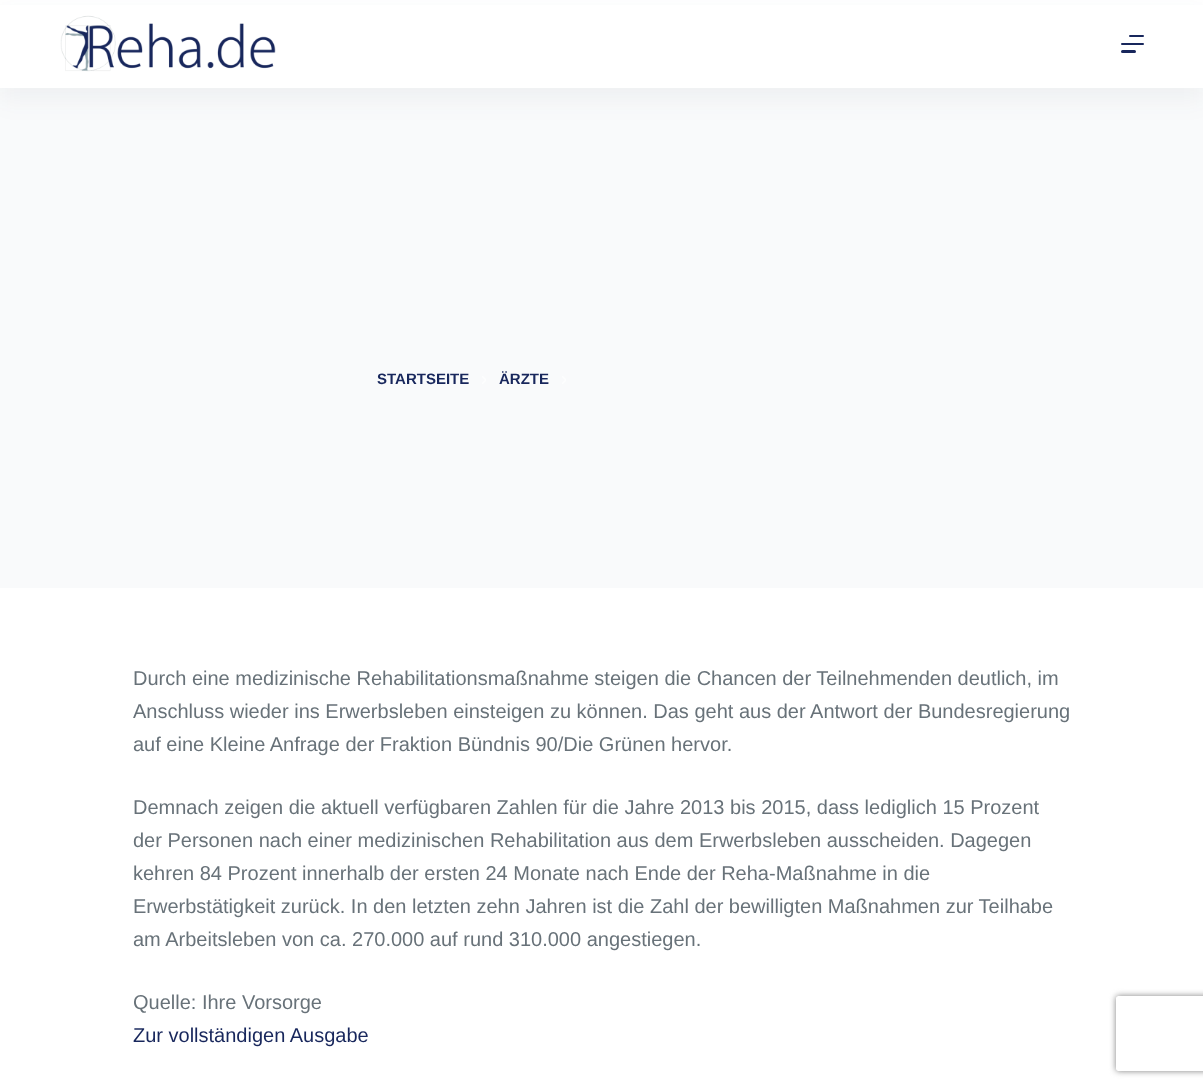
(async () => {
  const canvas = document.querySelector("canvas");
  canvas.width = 1203;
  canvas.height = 1088;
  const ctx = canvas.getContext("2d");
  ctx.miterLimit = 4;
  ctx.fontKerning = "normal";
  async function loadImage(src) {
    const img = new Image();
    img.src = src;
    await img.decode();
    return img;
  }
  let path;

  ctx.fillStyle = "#ffffff";
  ctx.fillRect(0, 0, 1203, 1088);
  ctx.fillStyle = "#f9fafb";
  ctx.fillRect(0, 88, 1203, 500);
  ctx.fillStyle = "rgba(43, 61, 79, 0.05)";
  ctx.filter = "blur(12.5px)";
  ctx.beginPath();
  ctx.rect(0, 13, 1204, 87);
  ctx.fill();
  ctx.filter = "none";
  ctx.fillStyle = "#ffffff";
  ctx.fillRect(0, 5, 1203, 83);
  ctx.drawImage(await loadImage("img/1.png"), 60, 15, 216, 57);
  ctx.fillStyle = "#18275c";
  ctx.beginPath();
  ctx.roundRect(1129, 35, 15, 2, 1);
  ctx.fill();
  ctx.beginPath();
  ctx.roundRect(1121, 43, 23, 2, 1);
  ctx.fill();
  ctx.beginPath();
  ctx.roundRect(1121, 50, 15, 3, 1.5);
  ctx.fill();
  ctx.drawImage(await loadImage("img/2.png"), 482, 376, 4, 8);
  ctx.drawImage(await loadImage("img/2.png"), 562, 376, 4, 8);
  ctx.save();
  path = new Path2D("M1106 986H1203V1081H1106ZM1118.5 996H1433.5C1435 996 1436 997 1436 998.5V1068.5C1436 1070 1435 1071 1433.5 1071H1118.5C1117 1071 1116 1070 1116 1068.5V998.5C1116 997 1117 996 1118.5 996Z");
  ctx.clip(path, "evenodd");
  ctx.fillStyle = "#808080";
  ctx.filter = "blur(3px)";
  ctx.beginPath();
  ctx.roundRect(1116, 996, 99, 75, 2.5);
  ctx.fill();
  ctx.filter = "none";
  ctx.restore();
  ctx.font = "bold 15px Liberation Sans";
  ctx.fillText("STARTSEITE", 377, 384);
  ctx.fillText("ÄRZTE", 499, 384);
  ctx.font = "20px Liberation Sans";
  ctx.fillStyle = "#687279";
  for (const [text, x, y] of [
    ["Durch eine medizinische Rehabilitationsmaßnahme steigen die Chancen der Teilnehmenden deutlich, im", 133, 685],
    ["Anschluss wieder ins Erwerbsleben einsteigen zu können. Das geht aus der Antwort der Bundesregierung", 133, 718],
    ["auf eine Kleine Anfrage der Fraktion Bündnis 90/Die Grünen hervor.", 133, 751],
    ["Demnach zeigen die aktuell verfügbaren Zahlen für die Jahre 2013 bis 2015, dass lediglich 15 Prozent", 133, 814],
    ["der Personen nach einer medizinischen Rehabilitation aus dem Erwerbsleben ausscheiden. Dagegen", 133, 847],
    ["kehren 84 Prozent innerhalb der ersten 24 Monate nach Ende der Reha-Maßnahme in die", 133, 880],
    ["Erwerbstätigkeit zurück. In den letzten zehn Jahren ist die Zahl der bewilligten Maßnahmen zur Teilhabe", 133, 913],
    ["am Arbeitsleben von ca. 270.000 auf rund 310.000 angestiegen.", 133, 946],
    ["Quelle: Ihre Vorsorge", 133, 1009],
  ]) {
    ctx.fillText(text, x, y);
  }
  ctx.fillStyle = "#18275c";
  ctx.fillText("Zur vollständigen Ausgabe", 133, 1042);
})();
